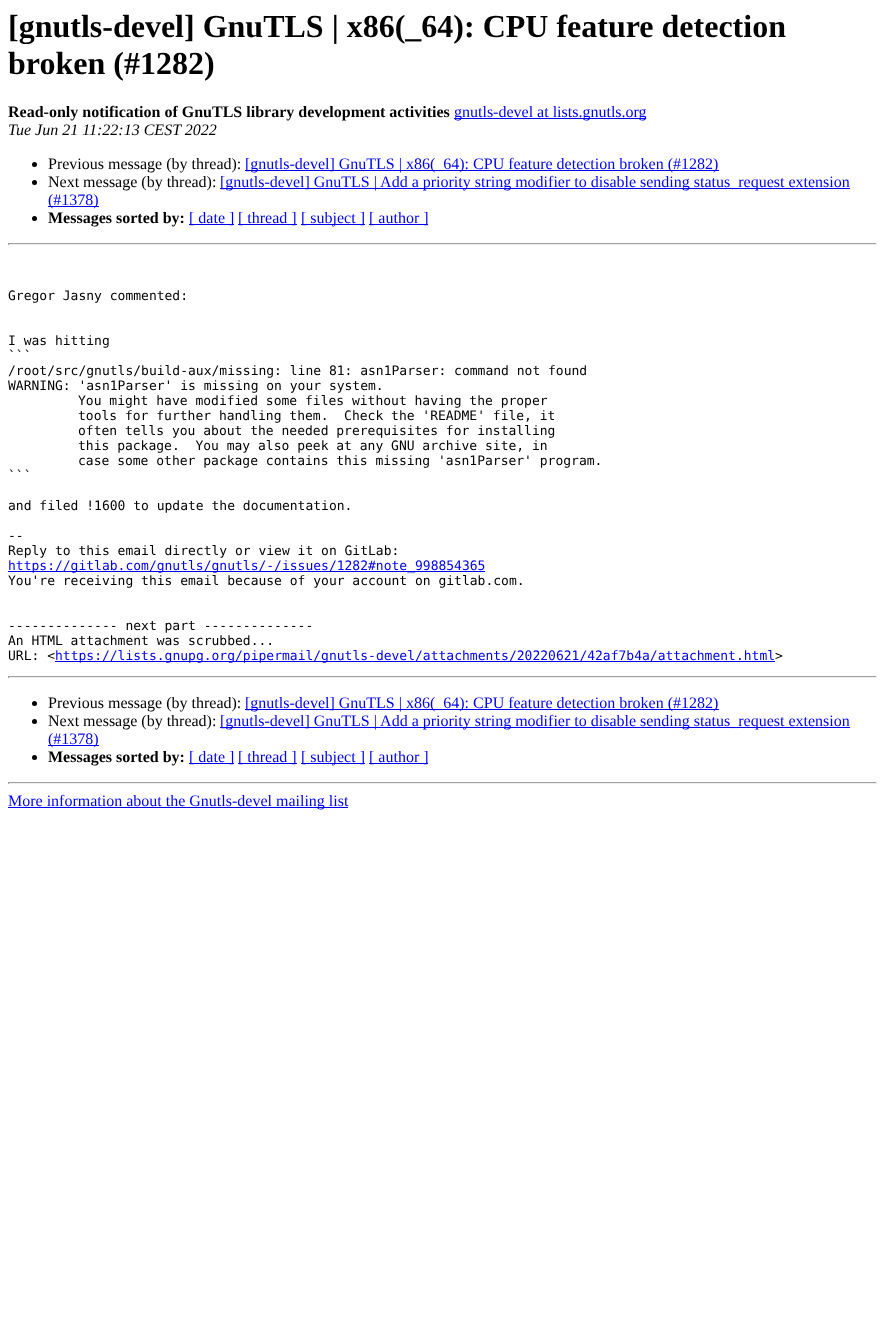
(async () => {
  const canvas = document.querySelector("canvas");
  canvas.width = 885;
  canvas.height = 1327;
  const ctx = canvas.getContext("2d");
  ctx.miterLimit = 4;
  ctx.fontKerning = "normal";

  ctx.fillStyle = "#ffffff";
  ctx.fillRect(0, 0, 885, 1327);
  ctx.fillStyle = "#0000ee";
  ctx.fillRect(454, 118, 192, 1);
  ctx.fillStyle = "#000000";
  ctx.beginPath();
  ctx.arc(34.5, 164.5, 2.5, 0, Math.PI * 2);
  ctx.fill();
  ctx.fillStyle = "#0000ee";
  ctx.fillRect(245, 170, 474, 1);
  ctx.fillStyle = "#000000";
  ctx.beginPath();
  ctx.arc(34.5, 182.5, 2.5, 0, Math.PI * 2);
  ctx.fill();
  ctx.fillStyle = "#0000ee";
  ctx.fillRect(220, 188, 630, 1);
  ctx.fillRect(48, 206, 51, 1);
  ctx.fillStyle = "#000000";
  ctx.beginPath();
  ctx.arc(34.5, 218.5, 2.5, 0, Math.PI * 2);
  ctx.fill();
  for (const [x, y, w, h, color] of [
    [189, 224, 45, 1, "#0000ee"],
    [238, 224, 59, 1, "#0000ee"],
    [301, 224, 64, 1, "#0000ee"],
    [369, 224, 59, 1, "#0000ee"],
    [8, 243, 869, 1, "#9f9f9f"],
    [876, 243, 1, 2, "#eeeeee"],
    [8, 244, 869, 1, "#eeeeee"],
    [8, 243, 1, 2, "#9f9f9f"],
    [8, 571, 477, 1, "#0000ee"],
    [55, 661, 720, 1, "#0000ee"],
    [8, 676, 869, 1, "#9f9f9f"],
    [876, 676, 1, 2, "#eeeeee"],
    [8, 677, 869, 1, "#eeeeee"],
    [8, 676, 1, 2, "#9f9f9f"],
  ]) {
    ctx.fillStyle = color;
    ctx.fillRect(x, y, w, h);
  }
  ctx.fillStyle = "#000000";
  ctx.beginPath();
  ctx.arc(34.5, 703.5, 2.5, 0, Math.PI * 2);
  ctx.fill();
  ctx.fillStyle = "#0000ee";
  ctx.fillRect(245, 709, 474, 1);
  ctx.fillStyle = "#000000";
  ctx.beginPath();
  ctx.arc(34.5, 721.5, 2.5, 0, Math.PI * 2);
  ctx.fill();
  ctx.fillStyle = "#0000ee";
  ctx.fillRect(220, 727, 630, 1);
  ctx.fillRect(48, 745, 51, 1);
  ctx.fillStyle = "#000000";
  ctx.beginPath();
  ctx.arc(34.5, 757.5, 2.5, 0, Math.PI * 2);
  ctx.fill();
  for (const [x, y, w, h, color] of [
    [189, 763, 45, 1, "#0000ee"],
    [238, 763, 59, 1, "#0000ee"],
    [301, 763, 64, 1, "#0000ee"],
    [369, 763, 59, 1, "#0000ee"],
    [8, 782, 869, 1, "#9f9f9f"],
    [876, 782, 1, 2, "#eeeeee"],
    [8, 783, 869, 1, "#eeeeee"],
    [8, 782, 1, 2, "#9f9f9f"],
    [8, 807, 340, 1, "#0000ee"],
  ]) {
    ctx.fillStyle = color;
    ctx.fillRect(x, y, w, h);
  }
  ctx.font = "bold 32px Liberation Serif";
  ctx.fillStyle = "#000000";
  ctx.fillText("[gnutls-devel] GnuTLS | x86(_64): CPU feature detection", 8, 37);
  ctx.fillText("broken (#1282)", 8, 74);
  ctx.font = "bold 16px Liberation Serif";
  ctx.fillText("Read-only notification of GnuTLS library development activities", 8, 117);
  ctx.font = "16px Liberation Serif";
  ctx.fillStyle = "#0000ee";
  ctx.fillText("gnutls-devel at lists.gnutls.org", 454, 117);
  ctx.font = "italic 16px Liberation Serif";
  ctx.fillStyle = "#000000";
  ctx.fillText("Tue Jun 21 11:22:13 CEST 2022", 8, 135);
  ctx.font = "16px Liberation Serif";
  ctx.fillText("Previous message (by thread):", 48, 169);
  ctx.fillStyle = "#0000ee";
  ctx.fillText("[gnutls-devel] GnuTLS | x86(_64): CPU feature detection broken (#1282)", 245, 169);
  ctx.fillStyle = "#000000";
  ctx.fillText("Next message (by thread):", 48, 187);
  ctx.fillStyle = "#0000ee";
  ctx.fillText("[gnutls-devel] GnuTLS | Add a priority string modifier to disable sending status_request extension", 220, 187);
  ctx.fillText("(#1378)", 48, 205);
  ctx.font = "bold 16px Liberation Serif";
  ctx.fillStyle = "#000000";
  ctx.fillText("Messages sorted by:", 48, 223);
  ctx.font = "16px Liberation Serif";
  ctx.fillStyle = "#0000ee";
  for (const [text, x, y] of [
    ["[ date ]", 189, 223],
    ["[ thread ]", 238, 223],
    ["[ subject ]", 301, 223],
    ["[ author ]", 369, 223],
  ]) {
    ctx.fillText(text, x, y);
  }
  ctx.font = "13px DejaVu Sans Mono";
  ctx.fillStyle = "#000000";
  for (const [text, x, y] of [
    ["Gregor Jasny commented:", 8, 300],
    ["I was hitting", 8, 345],
    ["```", 8, 360],
    ["/root/src/gnutls/build-aux/missing: line 81: asn1Parser: command not found", 8, 375],
    ["WARNING: 'asn1Parser' is missing on your system.", 8, 390],
    ["You might have modified some files without having the proper", 78, 405],
    ["tools for further handling them.  Check the 'README' file, it", 78, 420],
    ["often tells you about the needed prerequisites for installing", 78, 435],
    ["this package.  You may also peek at any GNU archive site, in", 78, 450],
    ["case some other package contains this missing 'asn1Parser' program.", 78, 465],
    ["```", 8, 480],
    ["and filed !1600 to update the documentation.", 8, 510],
    ["--", 8, 540],
    ["Reply to this email directly or view it on GitLab:", 8, 555],
  ]) {
    ctx.fillText(text, x, y);
  }
  ctx.fillStyle = "#0000ee";
  ctx.fillText("https://gitlab.com/gnutls/gnutls/-/issues/1282#note_998854365", 8, 570);
  ctx.fillStyle = "#000000";
  for (const [text, x, y] of [
    ["You're receiving this email because of your account on gitlab.com.", 8, 585],
    ["-------------- next part --------------", 8, 630],
    ["An HTML attachment was scrubbed...", 8, 645],
    ["URL: <", 8, 660],
  ]) {
    ctx.fillText(text, x, y);
  }
  ctx.fillStyle = "#0000ee";
  ctx.fillText("https://lists.gnupg.org/pipermail/gnutls-devel/attachments/20220621/42af7b4a/attachment.html", 55, 660);
  ctx.fillStyle = "#000000";
  ctx.fillText(">", 775, 660);
  ctx.font = "16px Liberation Serif";
  ctx.fillText("Previous message (by thread):", 48, 708);
  ctx.fillStyle = "#0000ee";
  ctx.fillText("[gnutls-devel] GnuTLS | x86(_64): CPU feature detection broken (#1282)", 245, 708);
  ctx.fillStyle = "#000000";
  ctx.fillText("Next message (by thread):", 48, 726);
  ctx.fillStyle = "#0000ee";
  ctx.fillText("[gnutls-devel] GnuTLS | Add a priority string modifier to disable sending status_request extension", 220, 726);
  ctx.fillText("(#1378)", 48, 744);
  ctx.font = "bold 16px Liberation Serif";
  ctx.fillStyle = "#000000";
  ctx.fillText("Messages sorted by:", 48, 762);
  ctx.font = "16px Liberation Serif";
  ctx.fillStyle = "#0000ee";
  for (const [text, x, y] of [
    ["[ date ]", 189, 762],
    ["[ thread ]", 238, 762],
    ["[ subject ]", 301, 762],
    ["[ author ]", 369, 762],
    ["More information about the Gnutls-devel mailing list", 8, 806],
  ]) {
    ctx.fillText(text, x, y);
  }
})();
